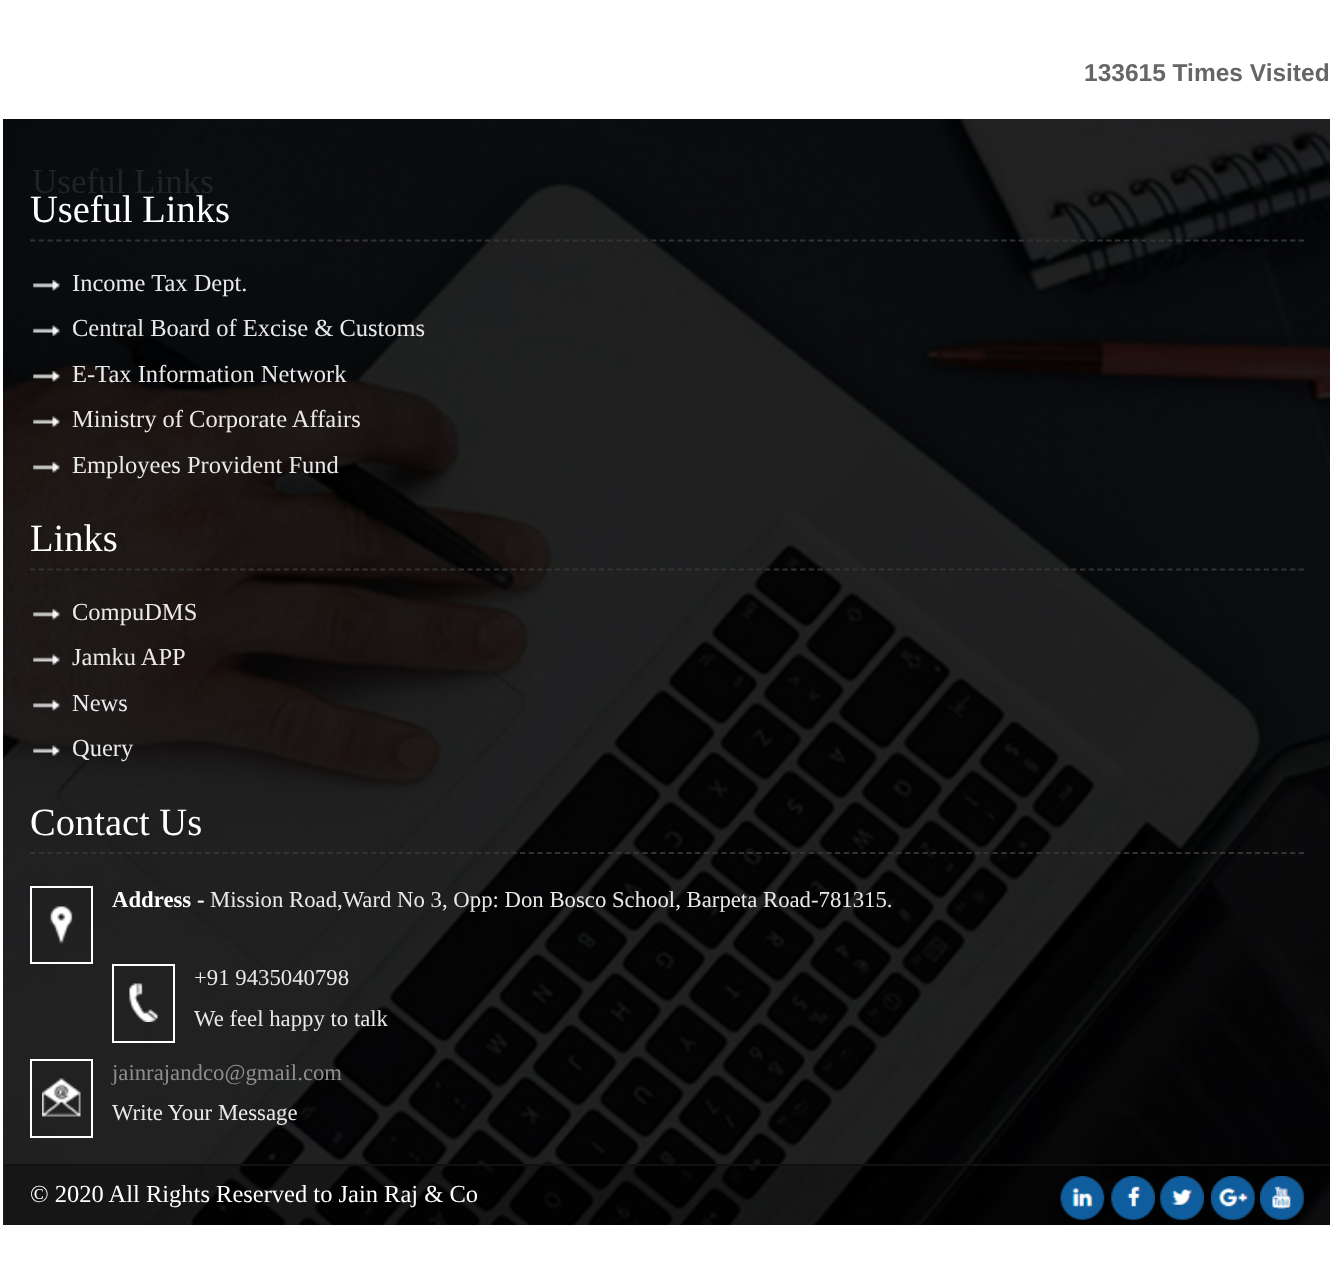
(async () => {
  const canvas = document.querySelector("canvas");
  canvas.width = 1333;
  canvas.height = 1277;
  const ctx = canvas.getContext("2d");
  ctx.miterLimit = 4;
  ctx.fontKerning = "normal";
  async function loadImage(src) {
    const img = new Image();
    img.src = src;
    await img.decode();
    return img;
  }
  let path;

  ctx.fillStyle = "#ffffff";
  ctx.fillRect(0, 0, 1333, 1277);
  ctx.drawImage(await loadImage("img/1.png"), 3, 119, 1327, 1106);
  path = new Path2D("M30 240.5H1304");
  ctx.strokeStyle = "#333333";
  ctx.lineWidth = 1.8;
  ctx.setLineDash([5.25, 3.5]);
  ctx.stroke(path);
  ctx.drawImage(await loadImage("img/2.png"), 33, 280, 27, 11);
  ctx.drawImage(await loadImage("img/3.png"), 33, 325, 27, 11);
  ctx.drawImage(await loadImage("img/4.png"), 33, 371, 27, 11);
  ctx.drawImage(await loadImage("img/5.png"), 33, 416, 27, 11);
  ctx.drawImage(await loadImage("img/6.png"), 33, 462, 27, 11);
  path = new Path2D("M30 569.5H1304");
  ctx.stroke(path);
  ctx.drawImage(await loadImage("img/7.png"), 33, 609, 27, 11);
  ctx.drawImage(await loadImage("img/8.png"), 33, 654, 27, 11);
  ctx.drawImage(await loadImage("img/9.png"), 33, 700, 27, 11);
  ctx.drawImage(await loadImage("img/10.png"), 33, 745, 27, 11);
  path = new Path2D("M30 853H1304");
  ctx.stroke(path);
  ctx.strokeStyle = "#ffffff";
  ctx.lineWidth = 2;
  ctx.setLineDash([]);
  ctx.strokeRect(31, 887, 61, 76);
  ctx.drawImage(await loadImage("img/11.png"), 50, 906, 23, 38);
  ctx.strokeRect(113, 965, 61, 77);
  ctx.drawImage(await loadImage("img/12.png"), 129, 983, 29, 39);
  ctx.strokeRect(31, 1060, 61, 77);
  ctx.drawImage(await loadImage("img/13.png"), 42, 1078, 39, 39);
  ctx.fillStyle = "rgba(0, 0, 0, 0.3)";
  ctx.fillRect(4, 1166, 1326, 59);
  ctx.fillStyle = "#111111";
  ctx.fillRect(4, 1164, 1326, 2);
  ctx.drawImage(await loadImage("img/14.png"), 1060, 1176, 45, 44);
  ctx.drawImage(await loadImage("img/15.png"), 1111, 1176, 44, 44);
  ctx.drawImage(await loadImage("img/16.png"), 1160, 1176, 44, 44);
  ctx.drawImage(await loadImage("img/17.png"), 1211, 1176, 44, 44);
  ctx.drawImage(await loadImage("img/18.png"), 1260, 1176, 44, 44);
  ctx.font = "bold 24.5px Liberation Sans";
  ctx.fillStyle = "#666666";
  ctx.fillText("133615 Times Visited", 1084, 81);
  ctx.font = "35px Liberation Serif";
  ctx.fillStyle = "#222222";
  ctx.fillText("Useful Links", 32, 193);
  ctx.font = "38.5px Liberation Serif";
  ctx.fillStyle = "#ffffff";
  ctx.fillText("Useful Links", 30, 222);
  ctx.font = "24.5px Liberation Serif";
  ctx.fillStyle = "#eae9e9";
  for (const [text, x, y] of [
    ["Income Tax Dept.", 72, 291],
    ["Central Board of Excise & Customs", 72, 336],
    ["E-Tax Information Network", 72, 382],
    ["Ministry of Corporate Affairs", 72, 427],
    ["Employees Provident Fund", 72, 473],
  ]) {
    ctx.fillText(text, x, y);
  }
  ctx.font = "38.5px Liberation Serif";
  ctx.fillStyle = "#ffffff";
  ctx.fillText("Links", 30, 551);
  ctx.font = "24.5px Liberation Serif";
  ctx.fillStyle = "#eae9e9";
  for (const [text, x, y] of [
    ["CompuDMS", 72, 620],
    ["Jamku APP", 72, 665],
    ["News", 72, 711],
    ["Query", 72, 756],
  ]) {
    ctx.fillText(text, x, y);
  }
  ctx.font = "38.5px Liberation Serif";
  ctx.fillStyle = "#ffffff";
  ctx.fillText("Contact Us", 30, 835);
  ctx.font = "bold 22.75px Liberation Serif";
  ctx.fillText("Address -", 112, 907);
  ctx.font = "22.75px Liberation Serif";
  ctx.fillStyle = "#eae9e9";
  for (const [text, x, y] of [
    ["Mission Road,Ward No 3, Opp: Don Bosco School, Barpeta Road-781315.", 210, 907],
    ["+91 9435040798", 194, 985],
    ["We feel happy to talk", 194, 1026],
  ]) {
    ctx.fillText(text, x, y);
  }
  ctx.fillStyle = "#8e8e8e";
  ctx.fillText("jainrajandco@gmail.com", 112, 1080);
  ctx.fillStyle = "#eae9e9";
  ctx.fillText("Write Your Message", 112, 1120);
  ctx.font = "24.5px Liberation Serif";
  ctx.fillStyle = "#ffffff";
  ctx.fillText("© 2020 All Rights Reserved to Jain Raj & Co", 30, 1202);
})();
